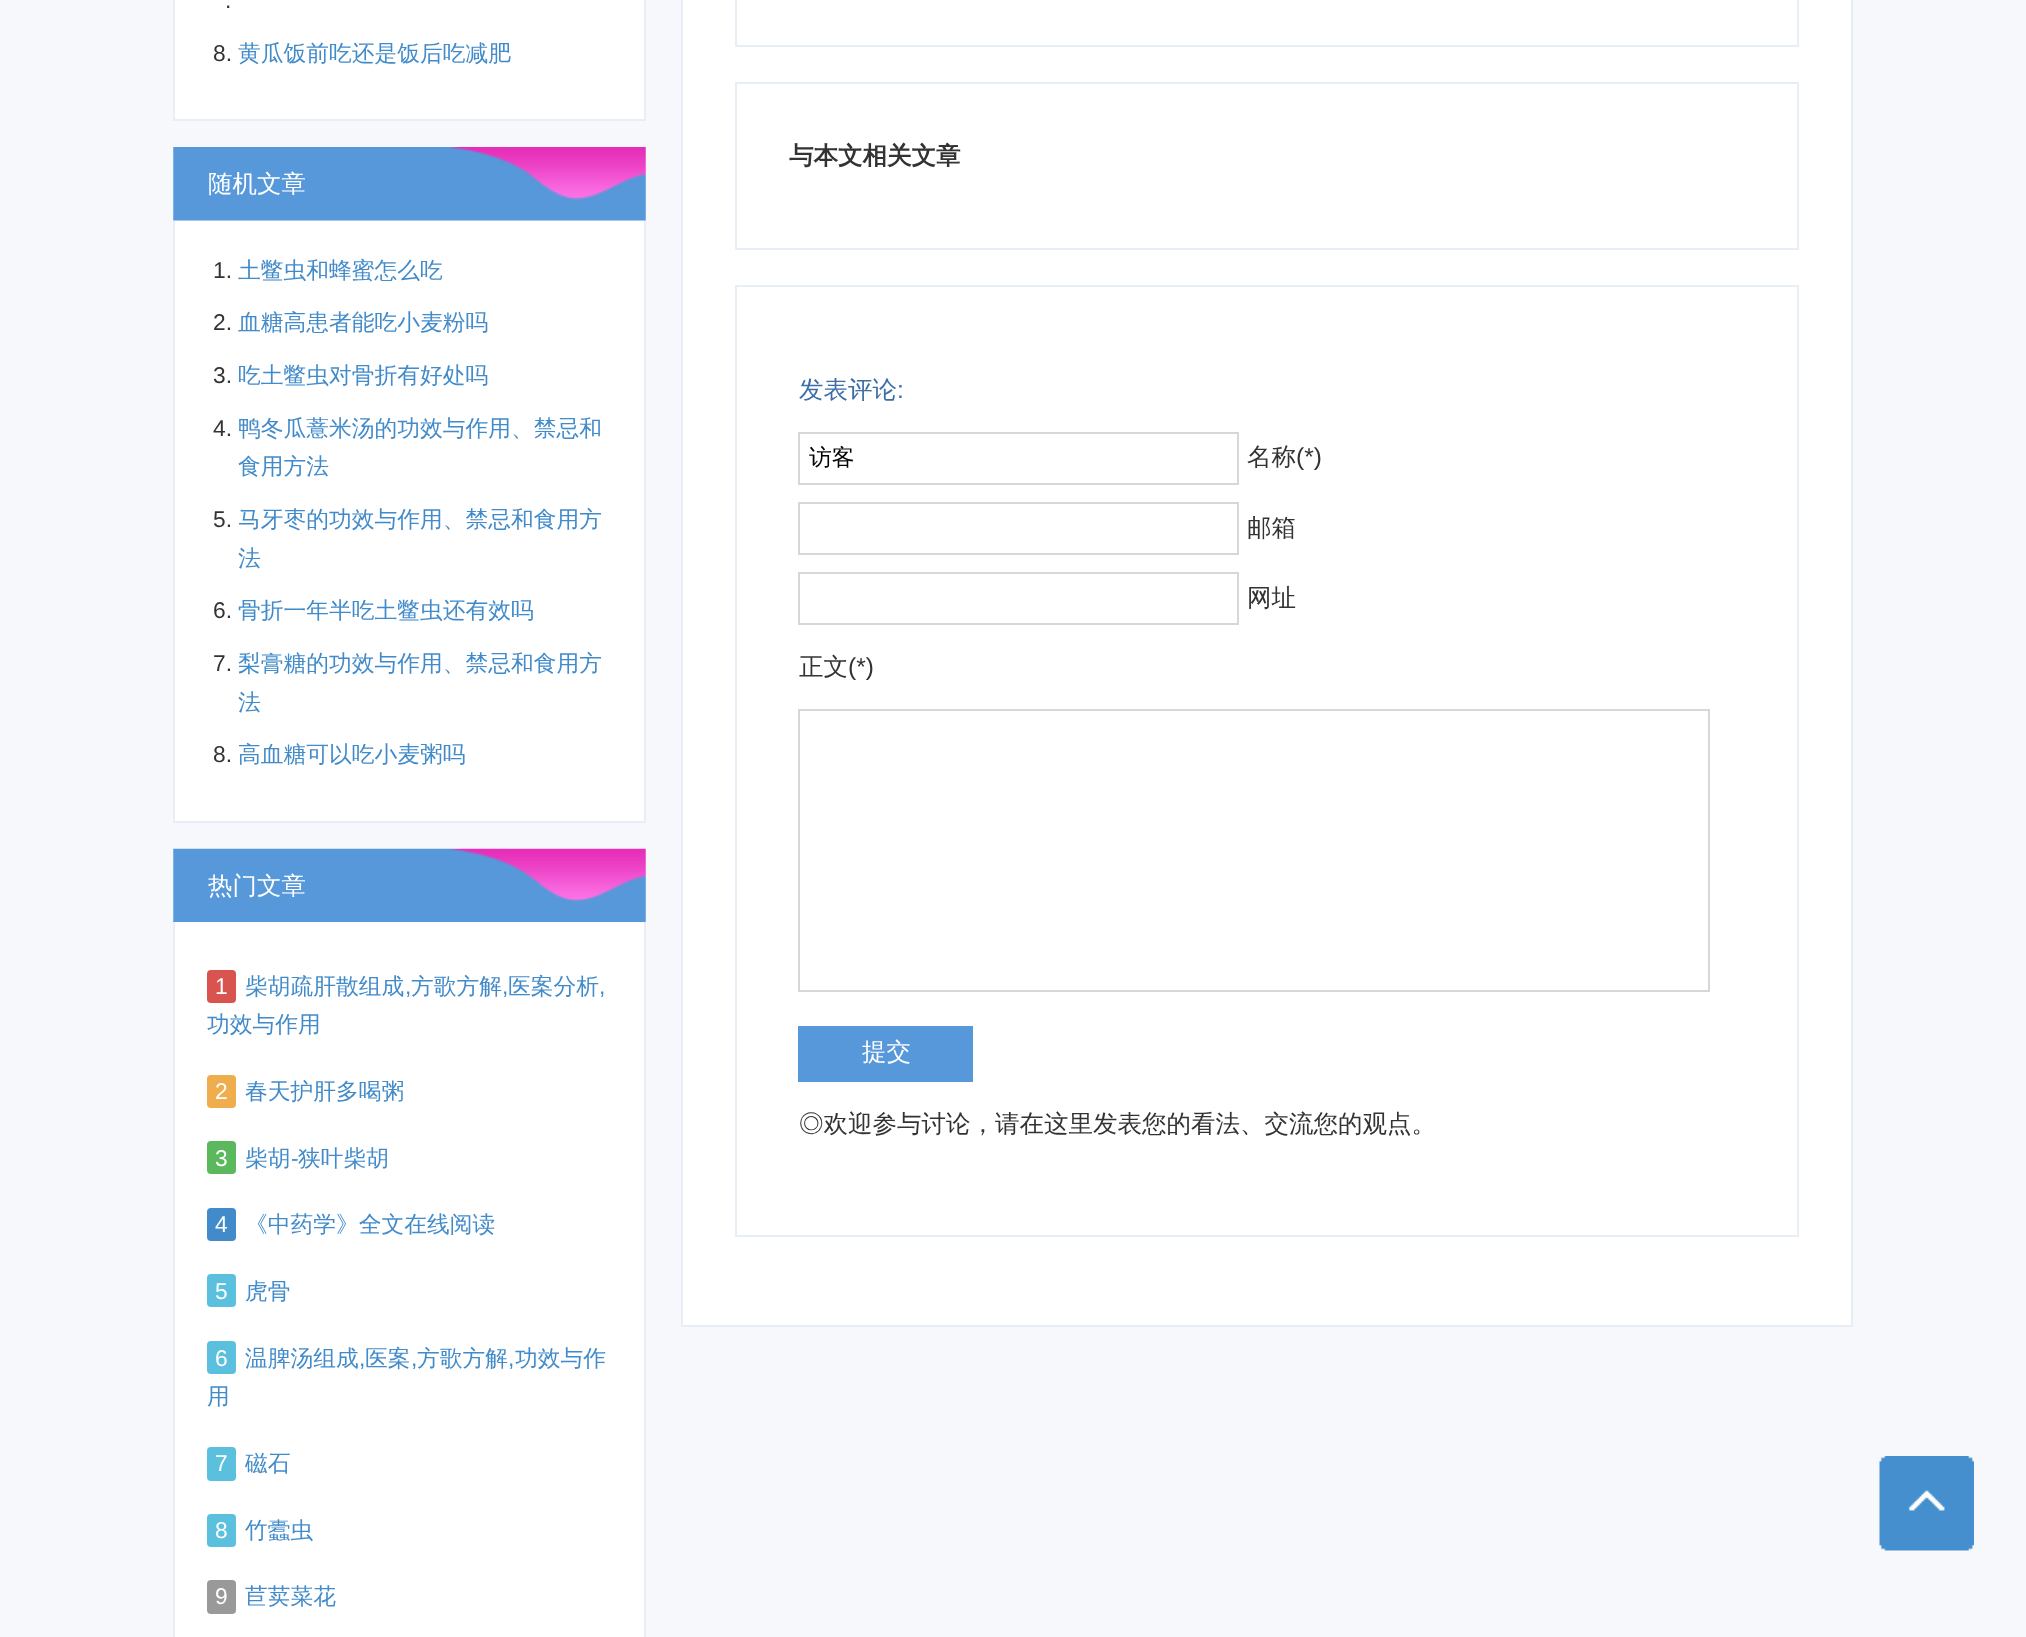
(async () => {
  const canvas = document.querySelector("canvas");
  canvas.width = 2026;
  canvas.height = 1637;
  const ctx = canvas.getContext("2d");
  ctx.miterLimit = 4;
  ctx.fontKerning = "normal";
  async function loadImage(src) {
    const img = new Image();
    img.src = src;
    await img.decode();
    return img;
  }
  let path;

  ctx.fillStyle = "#f6f8fb";
  ctx.fillRect(0, 0, 2026, 1637);
  for (const [x, y, w, h, color] of [
    [175, 0, 469, 119, "#ffffff"],
    [644, 0, 2, 121, "#e8eef6"],
    [173, 119, 473, 2, "#e8eef6"],
    [173, 0, 2, 121, "#e8eef6"],
  ]) {
    ctx.fillStyle = color;
    ctx.fillRect(x, y, w, h);
  }
  ctx.drawImage(await loadImage("img/1.png"), 173, 147, 473, 74);
  for (const [x, y, w, h, color] of [
    [175, 221, 469, 600, "#ffffff"],
    [644, 221, 2, 602, "#e8eef6"],
    [173, 821, 473, 2, "#e8eef6"],
    [173, 221, 2, 602, "#e8eef6"],
  ]) {
    ctx.fillStyle = color;
    ctx.fillRect(x, y, w, h);
  }
  ctx.drawImage(await loadImage("img/2.png"), 173, 848, 473, 74);
  ctx.fillStyle = "#ffffff";
  ctx.fillRect(175, 922, 469, 715);
  ctx.fillStyle = "#e8eef6";
  path = new Path2D("M173 922H646V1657C646 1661 643 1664 639 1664H180C176 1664 173 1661 173 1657ZM175 922H644V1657C644 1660 642 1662 639 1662H180C177 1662 175 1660 175 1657Z");
  ctx.fill(path, "evenodd");
  ctx.fillStyle = "#d9534f";
  ctx.beginPath();
  ctx.roundRect(207, 970, 29, 33, 4);
  ctx.fill();
  ctx.fillStyle = "#f0ad4e";
  ctx.beginPath();
  ctx.roundRect(207, 1075, 29, 33, 4);
  ctx.fill();
  ctx.fillStyle = "#5cb85c";
  ctx.beginPath();
  ctx.roundRect(207, 1141, 29, 33, 4);
  ctx.fill();
  ctx.fillStyle = "#428bca";
  ctx.beginPath();
  ctx.roundRect(207, 1208, 29, 33, 4);
  ctx.fill();
  ctx.fillStyle = "#5bc0de";
  ctx.beginPath();
  ctx.roundRect(207, 1274, 29, 33, 4);
  ctx.fill();
  ctx.beginPath();
  ctx.roundRect(207, 1341, 29, 33, 4);
  ctx.fill();
  ctx.beginPath();
  ctx.roundRect(207, 1447, 29, 34, 4);
  ctx.fill();
  ctx.beginPath();
  ctx.roundRect(207, 1514, 29, 33, 4);
  ctx.fill();
  ctx.fillStyle = "#999999";
  ctx.beginPath();
  ctx.roundRect(207, 1580, 29, 34, 4);
  ctx.fill();
  ctx.fillStyle = "#ffffff";
  ctx.beginPath();
  ctx.rect(682, -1, 1170, 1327);
  ctx.fill();
  ctx.strokeStyle = "#e8eef6";
  ctx.lineWidth = 2;
  ctx.stroke();
  ctx.strokeRect(736, -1, 1062, 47);
  ctx.strokeRect(736, 83, 1062, 166);
  ctx.strokeRect(736, 286, 1062, 950);
  ctx.strokeStyle = "#d7d7d7";
  ctx.strokeRect(799, 433, 439, 51);
  ctx.strokeRect(799, 503, 439, 51);
  ctx.strokeRect(799, 573, 439, 51);
  ctx.strokeRect(799, 710, 910, 281);
  ctx.fillStyle = "#5698da";
  ctx.fillRect(798, 1026, 175, 56);
  ctx.drawImage(await loadImage("img/3.png"), 1879, 1456, 95, 95);
  ctx.font = "22.75px Liberation Sans";
  ctx.fillStyle = "#333333";
  ctx.fillText(".", 225, 8);
  ctx.fillText("8.", 213, 61);
  ctx.font = "500 22.75px WenQuanYi Zen Hei";
  ctx.fillStyle = "#428bca";
  ctx.fillText("黄瓜饭前吃还是饭后吃减肥", 238, 61);
  ctx.font = "500 24.5px WenQuanYi Zen Hei";
  ctx.fillStyle = "#ffffff";
  ctx.fillText("随机文章", 208, 192);
  ctx.font = "22.75px Liberation Sans";
  ctx.fillStyle = "#333333";
  ctx.fillText("1.", 213, 278);
  ctx.font = "500 22.75px WenQuanYi Zen Hei";
  ctx.fillStyle = "#428bca";
  ctx.fillText("土鳖虫和蜂蜜怎么吃", 238, 278);
  ctx.font = "22.75px Liberation Sans";
  ctx.fillStyle = "#333333";
  ctx.fillText("2.", 213, 330);
  ctx.font = "500 22.75px WenQuanYi Zen Hei";
  ctx.fillStyle = "#428bca";
  ctx.fillText("血糖高患者能吃小麦粉吗", 238, 330);
  ctx.font = "22.75px Liberation Sans";
  ctx.fillStyle = "#333333";
  ctx.fillText("3.", 213, 383);
  ctx.font = "500 22.75px WenQuanYi Zen Hei";
  ctx.fillStyle = "#428bca";
  ctx.fillText("吃土鳖虫对骨折有好处吗", 238, 383);
  ctx.font = "22.75px Liberation Sans";
  ctx.fillStyle = "#333333";
  ctx.fillText("4.", 213, 436);
  ctx.font = "500 22.75px WenQuanYi Zen Hei";
  ctx.fillStyle = "#428bca";
  ctx.fillText("鸭冬瓜薏米汤的功效与作用、禁忌和", 238, 436);
  ctx.fillText("食用方法", 238, 474);
  ctx.font = "22.75px Liberation Sans";
  ctx.fillStyle = "#333333";
  ctx.fillText("5.", 213, 527);
  ctx.font = "500 22.75px WenQuanYi Zen Hei";
  ctx.fillStyle = "#428bca";
  ctx.fillText("马牙枣的功效与作用、禁忌和食用方", 238, 527);
  ctx.fillText("法", 238, 566);
  ctx.font = "22.75px Liberation Sans";
  ctx.fillStyle = "#333333";
  ctx.fillText("6.", 213, 618);
  ctx.font = "500 22.75px WenQuanYi Zen Hei";
  ctx.fillStyle = "#428bca";
  ctx.fillText("骨折一年半吃土鳖虫还有效吗", 238, 618);
  ctx.font = "22.75px Liberation Sans";
  ctx.fillStyle = "#333333";
  ctx.fillText("7.", 213, 671);
  ctx.font = "500 22.75px WenQuanYi Zen Hei";
  ctx.fillStyle = "#428bca";
  ctx.fillText("梨膏糖的功效与作用、禁忌和食用方", 238, 671);
  ctx.fillText("法", 238, 710);
  ctx.font = "22.75px Liberation Sans";
  ctx.fillStyle = "#333333";
  ctx.fillText("8.", 213, 762);
  ctx.font = "500 22.75px WenQuanYi Zen Hei";
  ctx.fillStyle = "#428bca";
  ctx.fillText("高血糖可以吃小麦粥吗", 238, 762);
  ctx.font = "500 24.5px WenQuanYi Zen Hei";
  ctx.fillStyle = "#ffffff";
  ctx.fillText("热门文章", 208, 894);
  ctx.font = "22.75px Liberation Sans";
  ctx.fillText("1", 215, 994);
  ctx.font = "500 22.75px WenQuanYi Zen Hei";
  ctx.fillStyle = "#428bca";
  ctx.fillText("柴胡疏肝散组成", 245, 994);
  ctx.font = "22.75px Liberation Sans";
  ctx.fillText(",", 405, 994);
  ctx.font = "500 22.75px WenQuanYi Zen Hei";
  ctx.fillText("方歌方解", 411, 994);
  ctx.font = "22.75px Liberation Sans";
  ctx.fillText(",", 502, 994);
  ctx.font = "500 22.75px WenQuanYi Zen Hei";
  ctx.fillText("医案分析", 508, 994);
  ctx.font = "22.75px Liberation Sans";
  ctx.fillText(",", 599, 994);
  ctx.font = "500 22.75px WenQuanYi Zen Hei";
  ctx.fillText("功效与作用", 207, 1032);
  ctx.font = "22.75px Liberation Sans";
  ctx.fillStyle = "#ffffff";
  ctx.fillText("2", 215, 1099);
  ctx.font = "500 22.75px WenQuanYi Zen Hei";
  ctx.fillStyle = "#428bca";
  ctx.fillText("春天护肝多喝粥", 245, 1099);
  ctx.font = "22.75px Liberation Sans";
  ctx.fillStyle = "#ffffff";
  ctx.fillText("3", 215, 1166);
  ctx.font = "500 22.75px WenQuanYi Zen Hei";
  ctx.fillStyle = "#428bca";
  ctx.fillText("柴胡", 245, 1166);
  ctx.font = "22.75px Liberation Sans";
  ctx.fillText("-", 291, 1166);
  ctx.font = "500 22.75px WenQuanYi Zen Hei";
  ctx.fillText("狭叶柴胡", 298, 1166);
  ctx.font = "22.75px Liberation Sans";
  ctx.fillStyle = "#ffffff";
  ctx.fillText("4", 215, 1232);
  ctx.font = "500 22.75px WenQuanYi Zen Hei";
  ctx.fillStyle = "#428bca";
  ctx.fillText("《中药学》全文在线阅读", 245, 1232);
  ctx.font = "22.75px Liberation Sans";
  ctx.fillStyle = "#ffffff";
  ctx.fillText("5", 215, 1299);
  ctx.font = "500 22.75px WenQuanYi Zen Hei";
  ctx.fillStyle = "#428bca";
  ctx.fillText("虎骨", 245, 1299);
  ctx.font = "22.75px Liberation Sans";
  ctx.fillStyle = "#ffffff";
  ctx.fillText("6", 215, 1366);
  ctx.font = "500 22.75px WenQuanYi Zen Hei";
  ctx.fillStyle = "#428bca";
  ctx.fillText("温脾汤组成", 245, 1366);
  ctx.font = "22.75px Liberation Sans";
  ctx.fillText(",", 359, 1366);
  ctx.font = "500 22.75px WenQuanYi Zen Hei";
  ctx.fillText("医案", 365, 1366);
  ctx.font = "22.75px Liberation Sans";
  ctx.fillText(",", 411, 1366);
  ctx.font = "500 22.75px WenQuanYi Zen Hei";
  ctx.fillText("方歌方解", 417, 1366);
  ctx.font = "22.75px Liberation Sans";
  ctx.fillText(",", 508, 1366);
  ctx.font = "500 22.75px WenQuanYi Zen Hei";
  ctx.fillText("功效与作", 515, 1366);
  ctx.fillText("用", 207, 1404);
  ctx.font = "22.75px Liberation Sans";
  ctx.fillStyle = "#ffffff";
  ctx.fillText("7", 215, 1471);
  ctx.font = "500 22.75px WenQuanYi Zen Hei";
  ctx.fillStyle = "#428bca";
  ctx.fillText("磁石", 245, 1471);
  ctx.font = "22.75px Liberation Sans";
  ctx.fillStyle = "#ffffff";
  ctx.fillText("8", 215, 1538);
  ctx.font = "500 22.75px WenQuanYi Zen Hei";
  ctx.fillStyle = "#428bca";
  ctx.fillText("竹蠹虫", 245, 1538);
  ctx.font = "22.75px Liberation Sans";
  ctx.fillStyle = "#ffffff";
  ctx.fillText("9", 215, 1604);
  ctx.font = "500 22.75px WenQuanYi Zen Hei";
  ctx.fillStyle = "#428bca";
  ctx.fillText("苣荬菜花", 245, 1604);
  ctx.font = "bold 24.5px WenQuanYi Zen Hei";
  ctx.fillStyle = "#333333";
  ctx.fillText("与本文相关文章", 789, 164);
  ctx.font = "500 24.5px WenQuanYi Zen Hei";
  ctx.fillStyle = "#3c6da7";
  ctx.fillText("发表评论", 799, 398);
  ctx.font = "24.5px Liberation Sans";
  ctx.fillText(":", 897, 398);
  ctx.font = "500 22.75px WenQuanYi Zen Hei";
  ctx.fillStyle = "#000000";
  ctx.fillText("访客", 809, 465);
  ctx.font = "500 24.5px WenQuanYi Zen Hei";
  ctx.fillStyle = "#333333";
  ctx.fillText("名称", 1247, 465);
  ctx.font = "24.5px Liberation Sans";
  ctx.fillText("(*)", 1296, 465);
  ctx.font = "500 24.5px WenQuanYi Zen Hei";
  for (const [text, x, y] of [
    ["邮箱", 1247, 536],
    ["网址", 1247, 606],
    ["正文", 799, 675],
  ]) {
    ctx.fillText(text, x, y);
  }
  ctx.font = "24.5px Liberation Sans";
  ctx.fillText("(*)", 848, 675);
  ctx.font = "500 24.5px WenQuanYi Zen Hei";
  ctx.fillStyle = "#ffffff";
  ctx.fillText("提交", 862, 1060);
  ctx.fillStyle = "#333333";
  ctx.fillText("◎欢迎参与讨论，请在这里发表您的看法、交流您的观点。", 799, 1132);
})();
